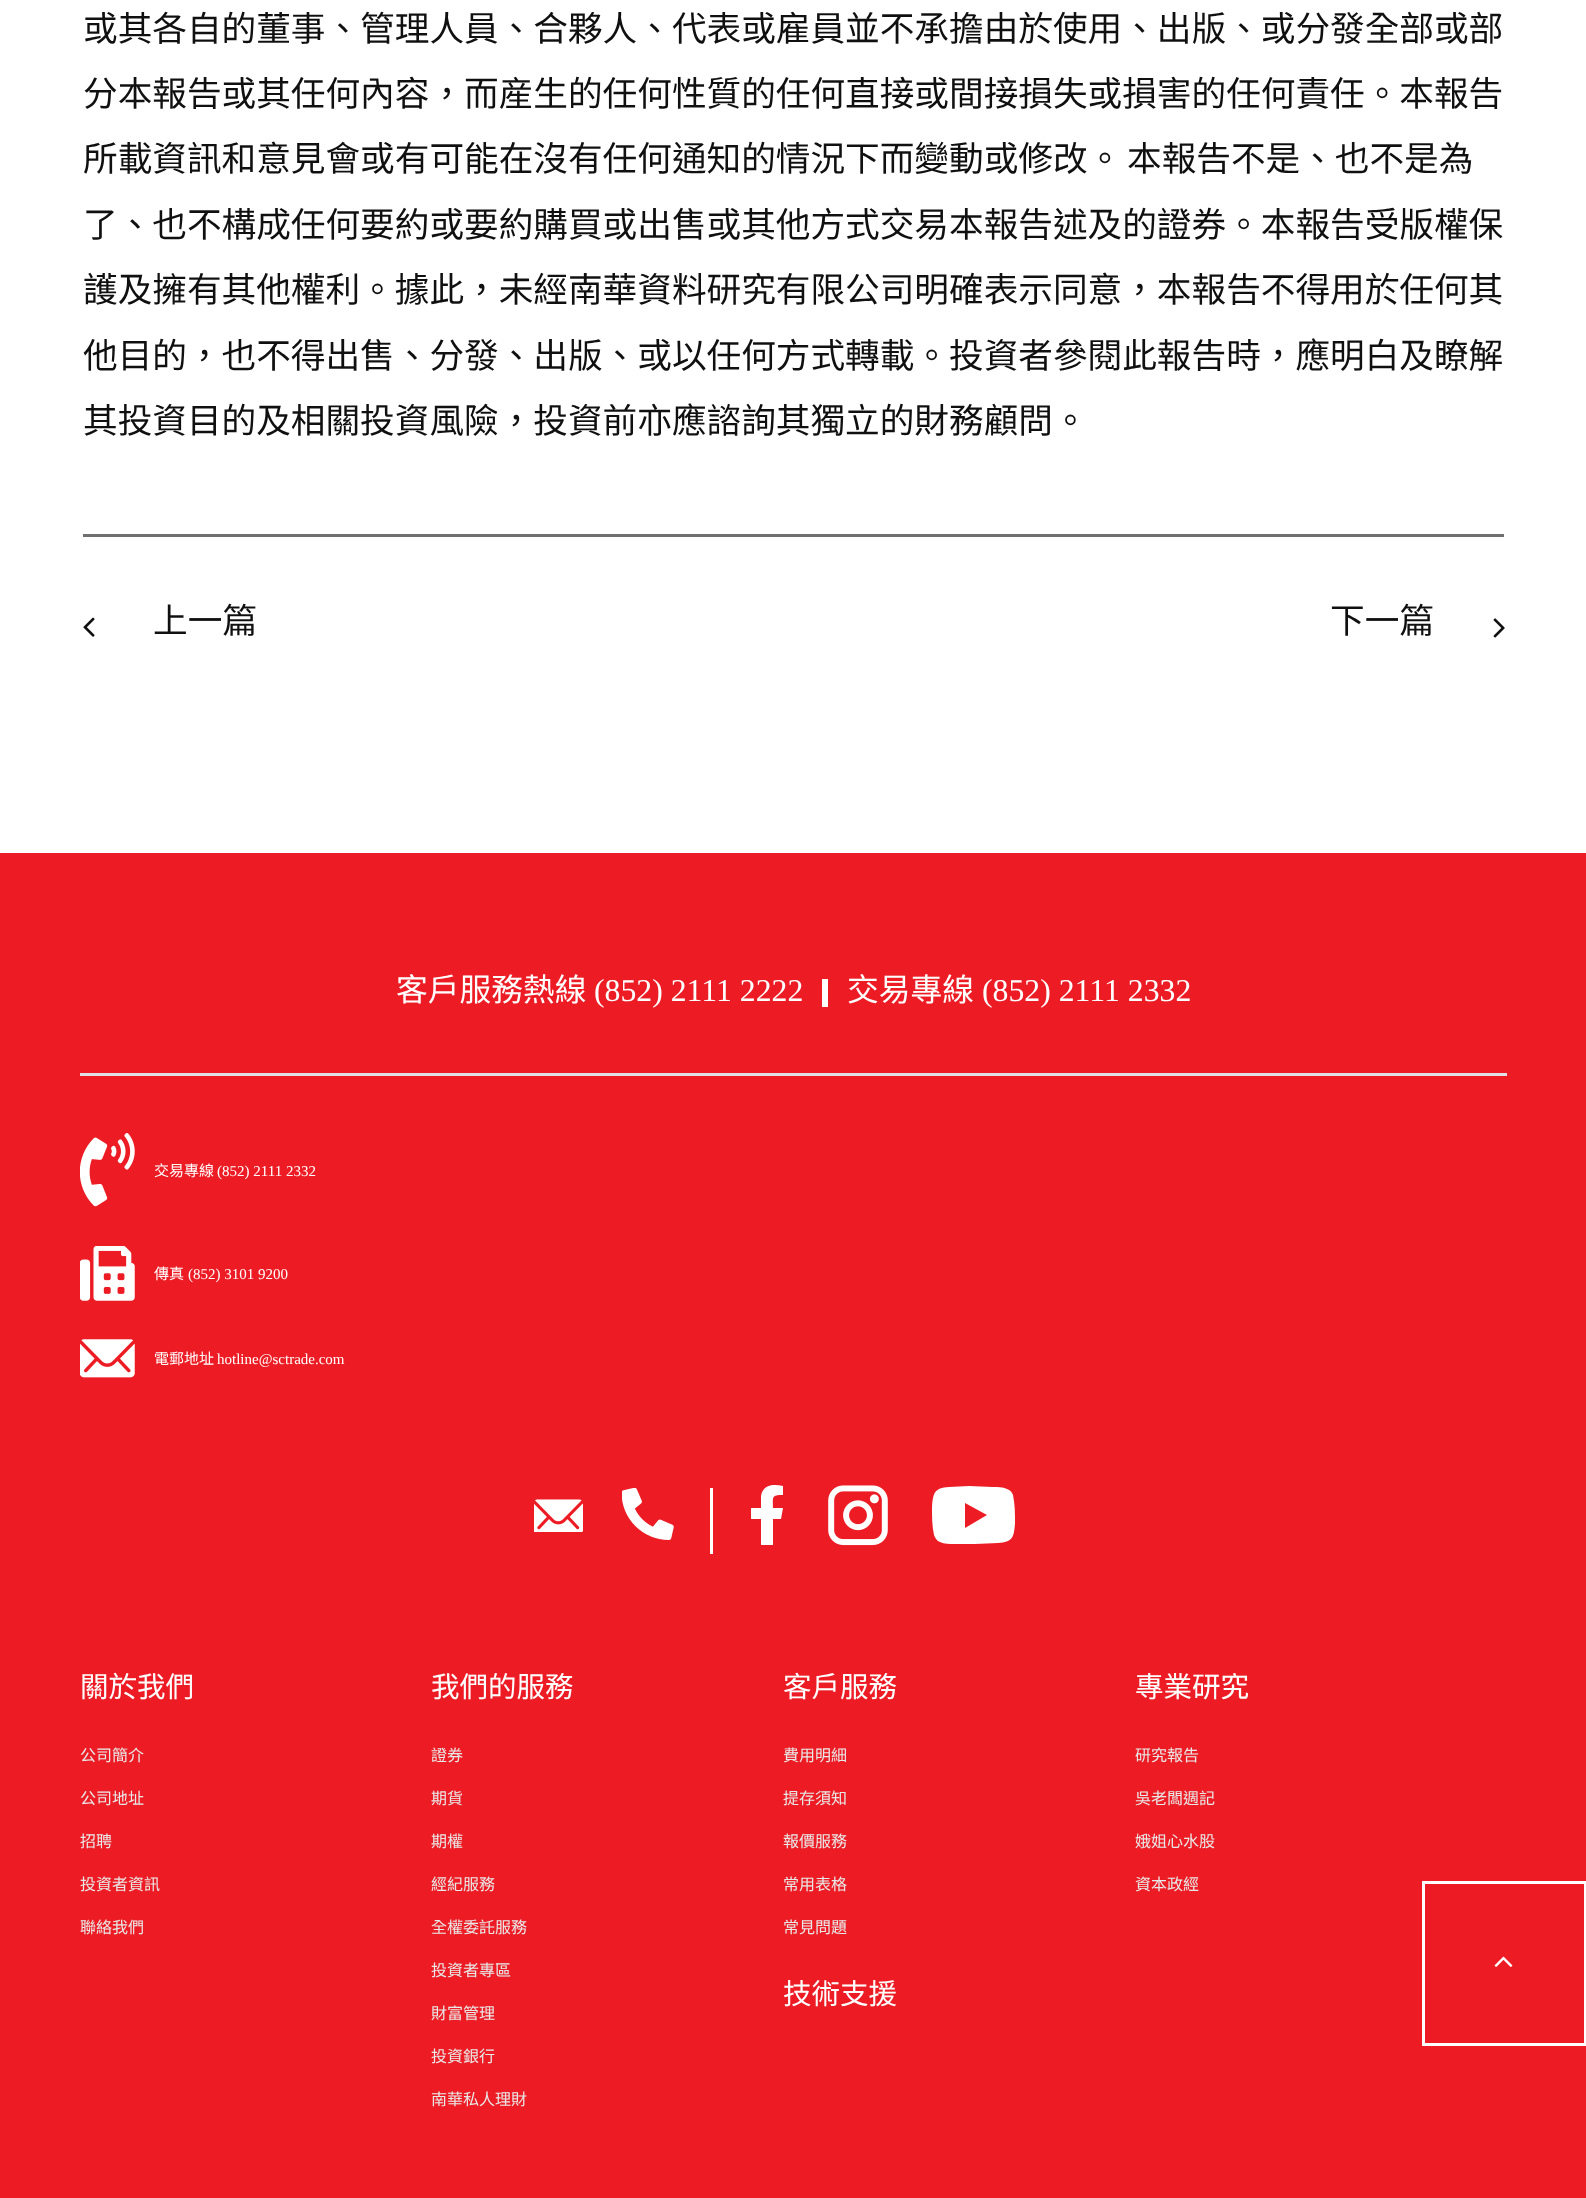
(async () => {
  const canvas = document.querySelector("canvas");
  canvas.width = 1586;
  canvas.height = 2198;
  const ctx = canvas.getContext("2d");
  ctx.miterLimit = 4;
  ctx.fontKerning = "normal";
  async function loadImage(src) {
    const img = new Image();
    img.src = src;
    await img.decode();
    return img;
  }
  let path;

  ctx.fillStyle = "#ffffff";
  ctx.fillRect(0, 0, 1586, 2198);
  ctx.fillStyle = "#707070";
  ctx.fillRect(83, 534, 1421, 3);
  ctx.drawImage(await loadImage("img/1.png"), 83, 617, 12, 20);
  ctx.drawImage(await loadImage("img/2.png"), 1493, 618, 12, 20);
  for (const [x, y, w, h, color] of [
    [0, 853, 1586, 1345, "#ed1c24"],
    [80, 1073, 1427, 3, "#dee2e6"],
    [822, 979, 6, 28, "#ffffff"],
  ]) {
    ctx.fillStyle = color;
    ctx.fillRect(x, y, w, h);
  }
  ctx.drawImage(await loadImage("img/3.png"), 80, 1133, 55, 74);
  ctx.drawImage(await loadImage("img/4.png"), 80, 1246, 55, 55);
  ctx.drawImage(await loadImage("img/5.png"), 80, 1339, 55, 39);
  ctx.drawImage(await loadImage("img/6.png"), 534, 1499, 49, 33);
  ctx.drawImage(await loadImage("img/7.png"), 622, 1488, 52, 52);
  ctx.fillRect(710, 1488, 3, 66);
  path = new Path2D("M781 1519L783 1508H773C773 1497 771 1495 783 1495V1486C774 1484 763 1484 761 1496V1508H751V1519H761V1545H773V1519Z");
  ctx.fill(path);
  ctx.drawImage(await loadImage("img/8.png"), 828, 1485, 60, 61);
  path = new Path2D("M1013 1495C1012 1492 1010 1490 1007 1489C1003 1487 997 1487 993 1487L969 1486L949 1487C934 1488 933 1493 932 1508C932 1517 932 1526 934 1535C935 1538 937 1541 940 1542C944 1544 950 1544 954 1544H975L998 1543C1013 1542 1014 1537 1015 1523C1015 1514 1015 1504 1013 1495ZM965 1528V1503L987 1515Z");
  ctx.fill(path);
  ctx.strokeStyle = "#ffffff";
  ctx.lineWidth = 3;
  ctx.strokeRect(1423.5, 1882.5, 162, 162);
  ctx.drawImage(await loadImage("img/9.png"), 1494, 1956, 19, 11);
  ctx.font = "34.65px Noto Sans CJK HK";
  ctx.fillStyle = "#101010";
  for (const [text, x, y] of [
    ["或其各自的董事、管理人員、合夥人、代表或雇員並不承擔由於使用、出版、或分發全部或部", 83, 41],
    ["分本報告或其任何內容，而産生的任何性質的任何直接或間接損失或損害的任何責任。本報告", 83, 106],
    ["所載資訊和意見會或有可能在沒有任何通知的情況下而變動或修改。", 83, 171],
    ["本報告不是、也不是為", 1127, 171],
    ["了、也不構成任何要約或要約購買或出售或其他方式交易本報告述及的證券。本報告受版權保", 83, 237],
    ["護及擁有其他權利。據此，未經南華資料研究有限公司明確表示同意，本報告不得用於任何其", 83, 302],
    ["他目的，也不得出售、分發、出版、或以任何方式轉載。投資者參閱此報告時，應明白及瞭解", 83, 368],
    ["其投資目的及相關投資風險，投資前亦應諮詢其獨立的財務顧問。", 83, 433],
    ["上一篇", 153, 633],
    ["下一篇", 1330, 633],
  ]) {
    ctx.fillText(text, x, y);
  }
  ctx.font = "31.75px Noto Sans CJK HK";
  ctx.fillStyle = "#ffffff";
  ctx.fillText("客戶服務熱線", 396, 1001);
  ctx.font = "31.75px Liberation Serif";
  ctx.fillText("(852) 2111 2222", 594, 1001);
  ctx.font = "31.75px Noto Sans CJK HK";
  ctx.fillText("交易專線", 847, 1001);
  ctx.font = "31.75px Liberation Serif";
  ctx.fillText("(852) 2111 2332", 982, 1001);
  ctx.font = "15px Noto Sans CJK HK";
  ctx.fillText("交易專線", 154, 1176);
  ctx.font = "15px Liberation Serif";
  ctx.fillText("(852) 2111 2332", 217, 1176);
  ctx.font = "15px Noto Sans CJK HK";
  ctx.fillText("傳真", 154, 1279);
  ctx.font = "15px Liberation Serif";
  ctx.fillText("(852) 3101 9200", 188, 1279);
  ctx.font = "15px Noto Sans CJK HK";
  ctx.fillText("電郵地址", 154, 1364);
  ctx.font = "15px Liberation Serif";
  ctx.fillText("hotline@sctrade.com", 217, 1364);
  ctx.font = "28.5px Noto Sans CJK HK";
  ctx.fillText("關於我們", 80, 1697);
  ctx.font = "16px Noto Sans CJK HK";
  ctx.fillStyle = "#e8e8e8";
  for (const [text, x, y] of [
    ["公司簡介", 80, 1761],
    ["公司地址", 80, 1804],
    ["招聘", 80, 1847],
    ["投資者資訊", 80, 1890],
    ["聯絡我們", 80, 1933],
  ]) {
    ctx.fillText(text, x, y);
  }
  ctx.font = "28.5px Noto Sans CJK HK";
  ctx.fillStyle = "#ffffff";
  ctx.fillText("我們的服務", 431, 1697);
  ctx.font = "16px Noto Sans CJK HK";
  ctx.fillStyle = "#e8e8e8";
  for (const [text, x, y] of [
    ["證券", 431, 1761],
    ["期貨", 431, 1804],
    ["期權", 431, 1847],
    ["經紀服務", 431, 1890],
    ["全權委託服務", 431, 1933],
    ["投資者專區", 431, 1976],
    ["財富管理", 431, 2019],
    ["投資銀行", 431, 2062],
    ["南華私人理財", 431, 2105],
  ]) {
    ctx.fillText(text, x, y);
  }
  ctx.font = "28.5px Noto Sans CJK HK";
  ctx.fillStyle = "#ffffff";
  ctx.fillText("客戶服務", 783, 1697);
  ctx.font = "16px Noto Sans CJK HK";
  ctx.fillStyle = "#e8e8e8";
  for (const [text, x, y] of [
    ["費用明細", 783, 1761],
    ["提存須知", 783, 1804],
    ["報價服務", 783, 1847],
    ["常用表格", 783, 1890],
    ["常見問題", 783, 1933],
  ]) {
    ctx.fillText(text, x, y);
  }
  ctx.font = "28.5px Noto Sans CJK HK";
  ctx.fillStyle = "#ffffff";
  ctx.fillText("技術支援", 783, 2004);
  ctx.fillText("專業研究", 1135, 1697);
  ctx.font = "16px Noto Sans CJK HK";
  ctx.fillStyle = "#e8e8e8";
  for (const [text, x, y] of [
    ["研究報告", 1135, 1761],
    ["吳老闆週記", 1135, 1804],
    ["娥姐心水股", 1135, 1847],
    ["資本政經", 1135, 1890],
  ]) {
    ctx.fillText(text, x, y);
  }
})();
